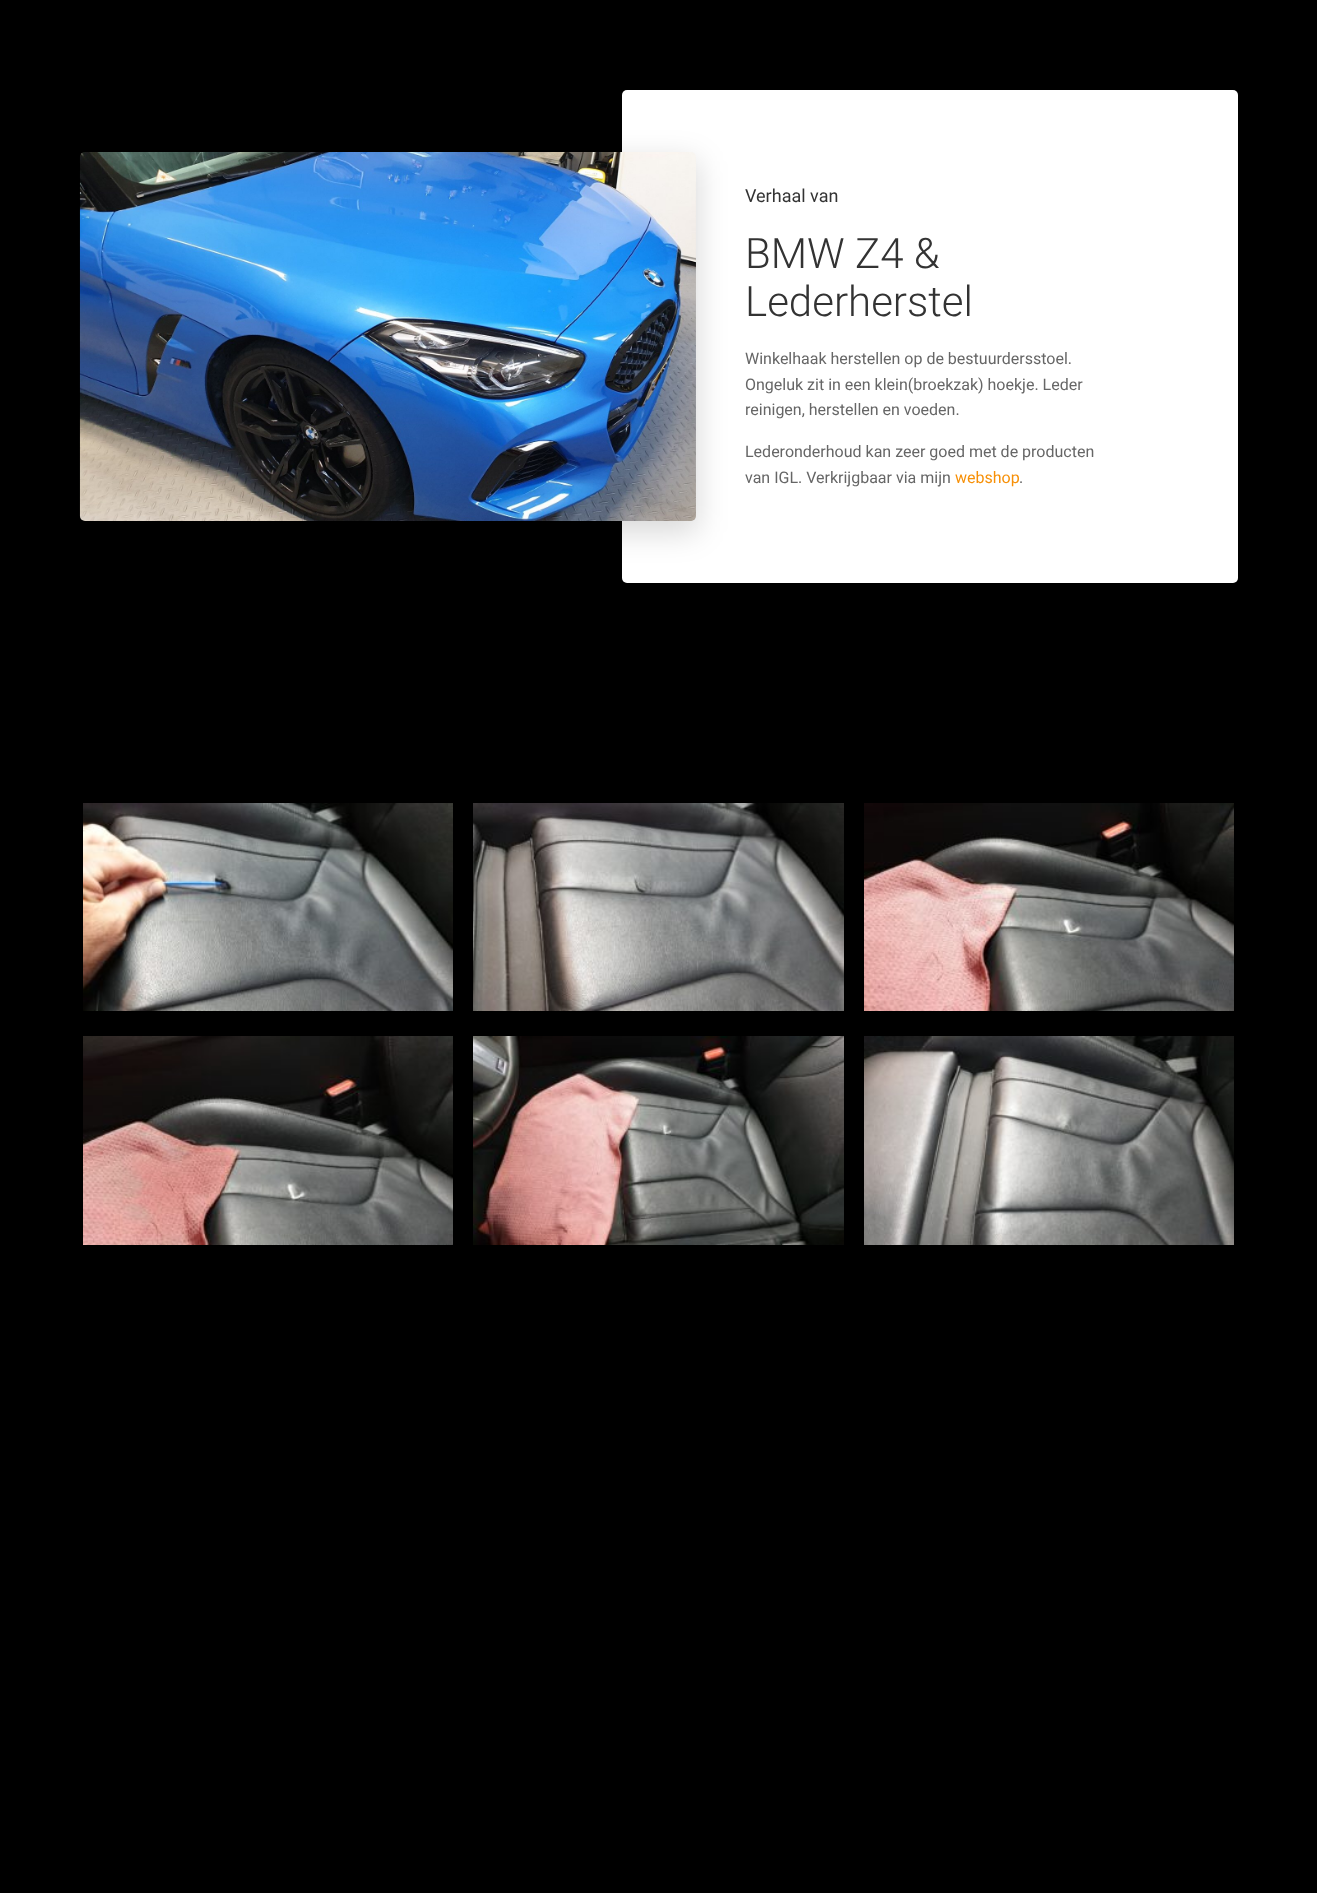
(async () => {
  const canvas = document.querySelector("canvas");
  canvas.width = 1317;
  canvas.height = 1893;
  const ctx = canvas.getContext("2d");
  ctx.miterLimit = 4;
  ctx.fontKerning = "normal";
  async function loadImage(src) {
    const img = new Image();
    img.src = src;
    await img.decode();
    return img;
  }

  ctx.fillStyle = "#000000";
  ctx.fillRect(0, 0, 1317, 1893);
  ctx.fillStyle = "#ffffff";
  ctx.beginPath();
  ctx.roundRect(622, 90, 616, 493, 5);
  ctx.fill();
  ctx.fillStyle = "rgba(0, 0, 0, 0.15)";
  ctx.filter = "blur(15px)";
  ctx.beginPath();
  ctx.roundRect(78, 160, 620, 373, 7);
  ctx.fill();
  ctx.filter = "none";
  ctx.drawImage(await loadImage("img/1.png"), 79, 152, 617, 369);
  ctx.drawImage(await loadImage("img/2.png"), 83, 803, 370, 208);
  ctx.drawImage(await loadImage("img/3.png"), 473, 803, 371, 208);
  ctx.drawImage(await loadImage("img/4.png"), 864, 803, 370, 208);
  ctx.drawImage(await loadImage("img/5.png"), 83, 1036, 370, 209);
  ctx.drawImage(await loadImage("img/6.png"), 473, 1036, 371, 209);
  ctx.drawImage(await loadImage("img/7.png"), 864, 1036, 370, 209);
  ctx.font = "18px Roboto";
  ctx.fillStyle = "#333333";
  ctx.fillText("Verhaal van", 745, 202);
  ctx.font = "300 42px Roboto";
  ctx.fillText("BMW Z4 &", 745, 268);
  ctx.fillText("Lederherstel", 745, 316);
  ctx.font = "16px Roboto";
  ctx.fillStyle = "#666666";
  for (const [text, x, y] of [
    ["Winkelhaak herstellen op de bestuurdersstoel.", 745, 364],
    ["Ongeluk zit in een klein(broekzak) hoekje. Leder", 745, 390],
    ["reinigen, herstellen en voeden.", 745, 415],
    ["Lederonderhoud kan zeer goed met de producten", 745, 457],
    ["van IGL. Verkrijgbaar via mijn", 745, 483],
  ]) {
    ctx.fillText(text, x, y);
  }
  ctx.fillStyle = "#f79007";
  ctx.fillText("webshop", 955, 483);
  ctx.fillStyle = "#666666";
  ctx.fillText(".", 1019, 483);
})();
